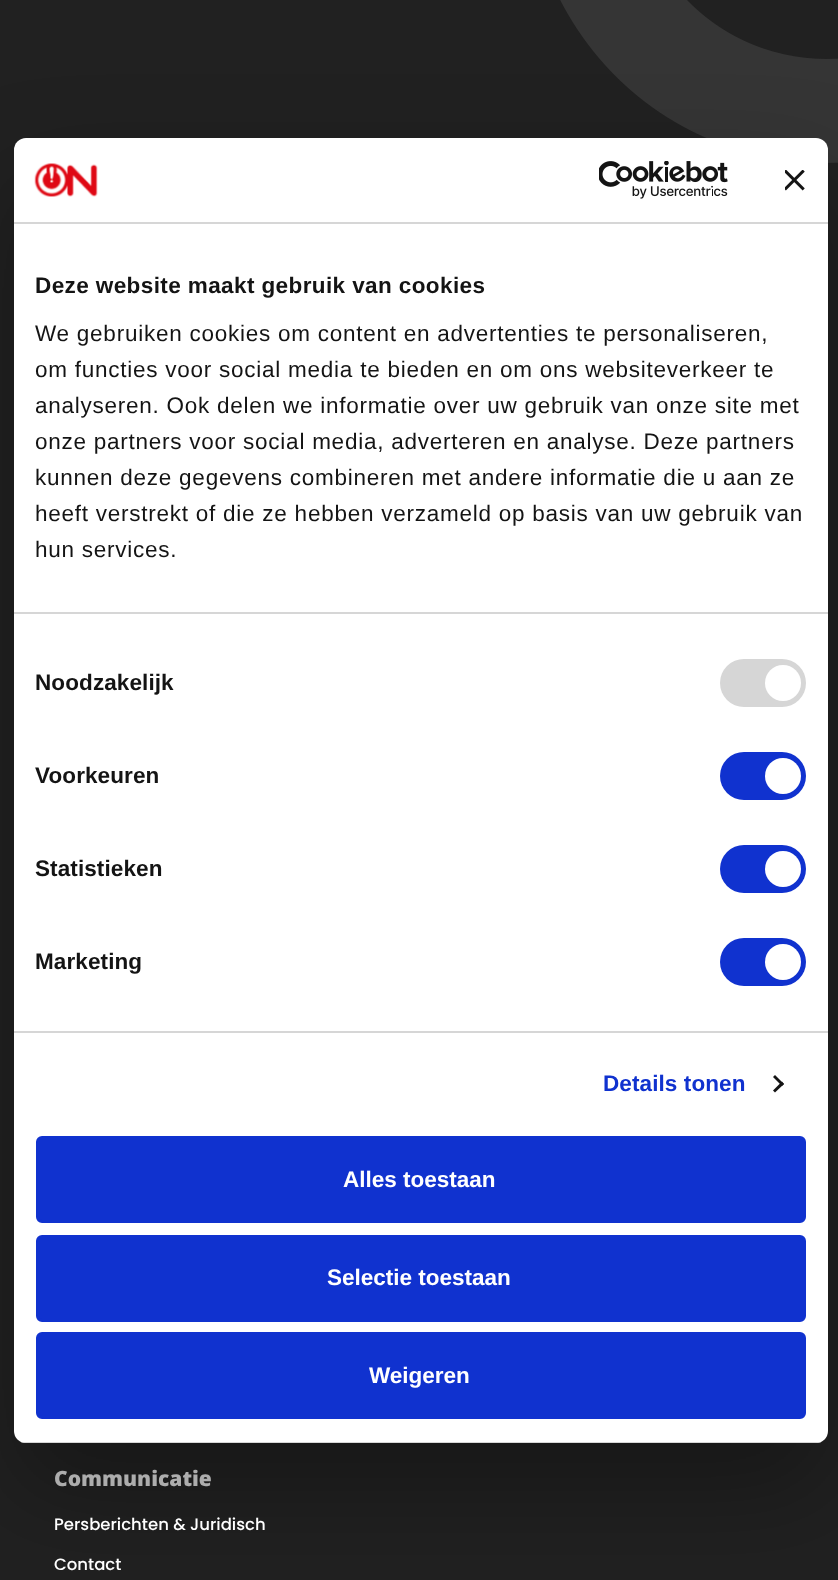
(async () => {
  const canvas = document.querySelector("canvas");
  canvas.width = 838;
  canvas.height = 1580;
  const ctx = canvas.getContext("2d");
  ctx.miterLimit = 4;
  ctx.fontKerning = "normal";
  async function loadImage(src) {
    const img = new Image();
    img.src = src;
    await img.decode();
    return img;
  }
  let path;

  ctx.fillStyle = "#212121";
  ctx.fillRect(0, 0, 838, 1580);
  ctx.drawImage(await loadImage("img/4.png"), 560, 0, 278, 163);
  ctx.fillStyle = "rgba(0, 0, 0, 0.3)";
  ctx.filter = "blur(51px)";
  ctx.beginPath();
  ctx.roundRect(14, 186, 814, 1305, 12);
  ctx.fill();
  ctx.filter = "none";
  ctx.fillStyle = "#ffffff";
  ctx.beginPath();
  ctx.roundRect(14, 138, 814, 1305, 12);
  ctx.fill();
  ctx.fillStyle = "#d6d6d6";
  ctx.fillRect(14, 222, 814, 2);
  ctx.drawImage(await loadImage("img/1.png"), 34, 163, 64, 34);
  ctx.drawImage(await loadImage("img/2.png"), 599, 161, 129, 38);
  ctx.drawImage(await loadImage("img/3.png"), 785, 170, 20, 21);
  ctx.fillRect(14, 612, 814, 2);
  ctx.fillRect(14, 1031, 814, 2);
  ctx.beginPath();
  ctx.roundRect(720, 659, 86, 48, 24);
  ctx.fill();
  ctx.fillStyle = "#ffffff";
  ctx.beginPath();
  ctx.arc(783, 683, 18, 0, Math.PI * 2);
  ctx.fill();
  ctx.fillStyle = "#1032cf";
  ctx.beginPath();
  ctx.roundRect(720, 752, 86, 48, 24);
  ctx.fill();
  ctx.fillStyle = "#ffffff";
  ctx.beginPath();
  ctx.arc(783, 776, 18, 0, Math.PI * 2);
  ctx.fill();
  ctx.fillStyle = "#1032cf";
  ctx.beginPath();
  ctx.roundRect(720, 845, 86, 48, 24);
  ctx.fill();
  ctx.fillStyle = "#ffffff";
  ctx.beginPath();
  ctx.arc(783, 869, 18, 0, Math.PI * 2);
  ctx.fill();
  ctx.fillStyle = "#1032cf";
  ctx.beginPath();
  ctx.roundRect(720, 938, 86, 48, 24);
  ctx.fill();
  ctx.fillStyle = "#ffffff";
  ctx.beginPath();
  ctx.arc(783, 962, 18, 0, Math.PI * 2);
  ctx.fill();
  ctx.fillStyle = "#141414";
  path = new Path2D("M775 1075L784 1084L782 1086L773 1077Z");
  ctx.fill(path);
  path = new Path2D("M782 1081.5L784 1084L775 1092.5L773 1090.5Z");
  ctx.fill(path);
  ctx.save();
  ctx.beginPath();
  ctx.roundRect(14, 138, 814, 1305, 12);
  ctx.clip();
  ctx.fillStyle = "#d6d6d6";
  ctx.fillRect(14, 1442, 814, 1);
  ctx.restore();
  ctx.fillStyle = "#1032cf";
  ctx.beginPath();
  ctx.roundRect(37.5, 1137.5, 767, 84, 4.5);
  ctx.fill();
  ctx.strokeStyle = "#1032cf";
  ctx.lineWidth = 3;
  ctx.stroke();
  ctx.beginPath();
  ctx.roundRect(37.5, 1236.5, 767, 84, 4.5);
  ctx.fill();
  ctx.stroke();
  ctx.beginPath();
  ctx.roundRect(37.5, 1333.5, 767, 84, 4.5);
  ctx.fill();
  ctx.stroke();
  ctx.letterSpacing = "0.4px";
  ctx.font = "bold 22.5px Liberation Sans";
  ctx.fillStyle = "#141414";
  ctx.fillText("Deze website maakt gebruik van cookies", 35, 293);
  ctx.letterSpacing = "0.75px";
  ctx.font = "22.5px Liberation Sans";
  for (const [text, x, y] of [
    ["We gebruiken cookies om content en advertenties te personaliseren,", 35, 341],
    ["om functies voor social media te bieden en om ons websiteverkeer te", 35, 377],
    ["analyseren. Ook delen we informatie over uw gebruik van onze site met", 35, 413],
    ["onze partners voor social media, adverteren en analyse. Deze partners", 35, 449],
    ["kunnen deze gegevens combineren met andere informatie die u aan ze", 35, 485],
    ["heeft verstrekt of die ze hebben verzameld op basis van uw gebruik van", 35, 521],
    ["hun services.", 35, 557],
  ]) {
    ctx.fillText(text, x, y);
  }
  ctx.letterSpacing = "0.1px";
  ctx.font = "bold 22.5px Liberation Sans";
  for (const [text, x, y] of [
    ["Noodzakelijk", 35, 690],
    ["Voorkeuren", 35, 783],
    ["Statistieken", 35, 876],
    ["Marketing", 35, 969],
  ]) {
    ctx.fillText(text, x, y);
  }
  ctx.fillStyle = "#1032cf";
  ctx.fillText("Details tonen", 603, 1091);
  ctx.letterSpacing = "0px";
  ctx.fillStyle = "#ffffff";
  for (const [text, x, y] of [
    ["Alles toestaan", 343, 1187],
    ["Selectie toestaan", 327, 1285],
    ["Weigeren", 369, 1383],
  ]) {
    ctx.fillText(text, x, y);
  }
  ctx.font = "800 21px Open Sans";
  ctx.fillStyle = "#adadad";
  ctx.fillText("Communicatie", 54, 1486);
  ctx.font = "500 16.5px Poppins";
  ctx.fillStyle = "#ffffff";
  ctx.fillText("Persberichten & Juridisch", 54, 1530);
  ctx.fillText("Contact", 54, 1570);
})();
